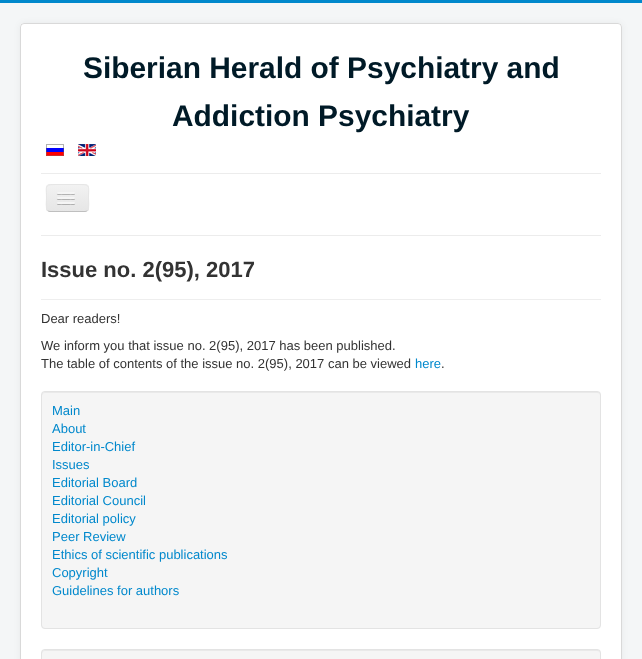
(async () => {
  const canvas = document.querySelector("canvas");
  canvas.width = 642;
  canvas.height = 659;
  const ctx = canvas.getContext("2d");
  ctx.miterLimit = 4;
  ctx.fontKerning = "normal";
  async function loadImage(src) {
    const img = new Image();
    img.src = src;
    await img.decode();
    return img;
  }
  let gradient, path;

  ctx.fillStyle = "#f4f6f7";
  ctx.fillRect(0, 0, 642, 659);
  ctx.fillStyle = "#0088cc";
  ctx.fillRect(0, 0, 642, 3);
  ctx.fillStyle = "rgba(0, 0, 0, 0.05)";
  ctx.filter = "blur(3px)";
  ctx.beginPath();
  ctx.roundRect(20, 23, 602, 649, 4);
  ctx.fill();
  ctx.filter = "none";
  ctx.fillStyle = "#ffffff";
  ctx.beginPath();
  ctx.roundRect(20, 23, 602, 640, 4);
  ctx.fill();
  ctx.beginPath();
  ctx.roundRect(20.5, 23.5, 601, 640, 3.5);
  ctx.strokeStyle = "rgba(0, 0, 0, 0.15)";
  ctx.stroke();
  ctx.drawImage(await loadImage("img/1.png"), 46, 144, 18, 12);
  ctx.drawImage(await loadImage("img/2.png"), 78, 144, 18, 12);
  ctx.fillStyle = "#ececec";
  ctx.fillRect(41, 173, 560, 1);
  ctx.fillRect(41, 235, 560, 1);
  ctx.fillStyle = "#ededed";
  ctx.beginPath();
  ctx.roundRect(46, 184, 43, 28, 4);
  ctx.fill();
  ctx.save();
  ctx.beginPath();
  ctx.roundRect(46, 184, 43, 28, 4);
  ctx.clip();
  gradient = ctx.createLinearGradient(68, 185, 68, 211);
  gradient.addColorStop(0, "#f2f2f2");
  gradient.addColorStop(1, "#e6e6e6");
  ctx.fillStyle = gradient;
  ctx.fillRect(46, 185, 43, 26);
  ctx.restore();
  path = new Path2D("M87.5 210.5C87 211 86 211.5 85 211.5H50C49 211.5 48 211 47.5 210.5");
  ctx.strokeStyle = "#bfbfbf";
  ctx.stroke(path);
  path = new Path2D("M47.5 210.5C45.5 208 46.5 200.5 46.5 198C46.5 186 44 184.5 56 184.5H79C91 184.5 88.5 186 88.5 198C88.5 200.5 89.5 208 87.5 210.5");
  ctx.strokeStyle = "#e6e6e6";
  ctx.stroke(path);
  ctx.fillStyle = "#b3b3b3";
  path = new Path2D("M57 193.5C56 195.5 60.5 195 60.5 195H71.5C71.5 195 76 195.5 75 193.5C74 194.5 67.5 194 66 194C64.5 194 58 194.5 57 193.5Z");
  ctx.fill(path);
  ctx.fillStyle = "#f5f5f5";
  ctx.beginPath();
  ctx.roundRect(57, 192, 18, 2, 1);
  ctx.fill();
  ctx.fillStyle = "#b0b0b0";
  path = new Path2D("M57 198.5C56 200.5 60.5 200 60.5 200H71.5C71.5 200 76 200.5 75 198.5C74 199.5 67.5 199 66 199C64.5 199 58 199.5 57 198.5Z");
  ctx.fill(path);
  ctx.fillStyle = "#f5f5f5";
  ctx.beginPath();
  ctx.roundRect(57, 197, 18, 2, 1);
  ctx.fill();
  ctx.fillStyle = "#afafaf";
  path = new Path2D("M57 203.5C56 205.5 60.5 205 60.5 205H71.5C71.5 205 76 205.5 75 203.5C74 204.5 67.5 204 66 204C64.5 204 58 204.5 57 203.5Z");
  ctx.fill(path);
  ctx.fillStyle = "#f5f5f5";
  ctx.beginPath();
  ctx.roundRect(57, 202, 18, 2, 1);
  ctx.fill();
  ctx.fillStyle = "#eeeeee";
  ctx.fillRect(41, 299, 560, 1);
  ctx.fillStyle = "#f5f5f5";
  ctx.beginPath();
  ctx.roundRect(41, 391, 560, 238, 4);
  ctx.fill();
  ctx.fillStyle = "#e9e9e9";
  path = new Path2D("M45 393H597C599 393 600 394 600 396C600 394 599 392 597 392H45L43 393L42 394V396C42 394 43 393 45 393Z");
  ctx.fill(path);
  ctx.beginPath();
  ctx.roundRect(41.5, 391.5, 559, 237, 3.5);
  ctx.strokeStyle = "#e3e3e3";
  ctx.stroke();
  ctx.fillStyle = "#f5f5f5";
  ctx.beginPath();
  ctx.roundRect(41, 649, 560, 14, 4);
  ctx.fill();
  ctx.fillStyle = "#e9e9e9";
  path = new Path2D("M45 651H597C599 651 600 652 600 654C600 652 599 650 597 650H45L43 651L42 652V654C42 652 43 651 45 651Z");
  ctx.fill(path);
  ctx.beginPath();
  ctx.roundRect(41.5, 649.5, 559, 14, 3.5);
  ctx.stroke();
  ctx.font = "bold 29.9px Liberation Sans";
  ctx.fillStyle = "#001a27";
  ctx.fillText("Siberian Herald of Psychiatry and", 83, 78);
  ctx.fillText("Addiction Psychiatry", 172, 126);
  ctx.font = "bold 22px Liberation Sans";
  ctx.fillStyle = "#333333";
  ctx.fillText("Issue no. 2(95), 2017", 41, 277);
  ctx.font = "13px Liberation Sans";
  for (const [text, x, y] of [
    ["Dear readers!", 41, 323],
    ["We inform you that issue no. 2(95), 2017 has been published.", 41, 350],
    ["The table of contents of the issue no. 2(95), 2017 can be viewed", 41, 368],
  ]) {
    ctx.fillText(text, x, y);
  }
  ctx.fillStyle = "#0088cc";
  ctx.fillText("here", 415, 368);
  ctx.fillStyle = "#333333";
  ctx.fillText(".", 441, 368);
  ctx.fillStyle = "#0088cc";
  for (const [text, x, y] of [
    ["Main", 52, 415],
    ["About", 52, 433],
    ["Editor-in-Chief", 52, 451],
    ["Issues", 52, 469],
    ["Editorial Board", 52, 487],
    ["Editorial Council", 52, 505],
    ["Editorial policy", 52, 523],
    ["Peer Review", 52, 541],
    ["Ethics of scientific publications", 52, 559],
    ["Copyright", 52, 577],
    ["Guidelines for authors", 52, 595],
  ]) {
    ctx.fillText(text, x, y);
  }
})();
